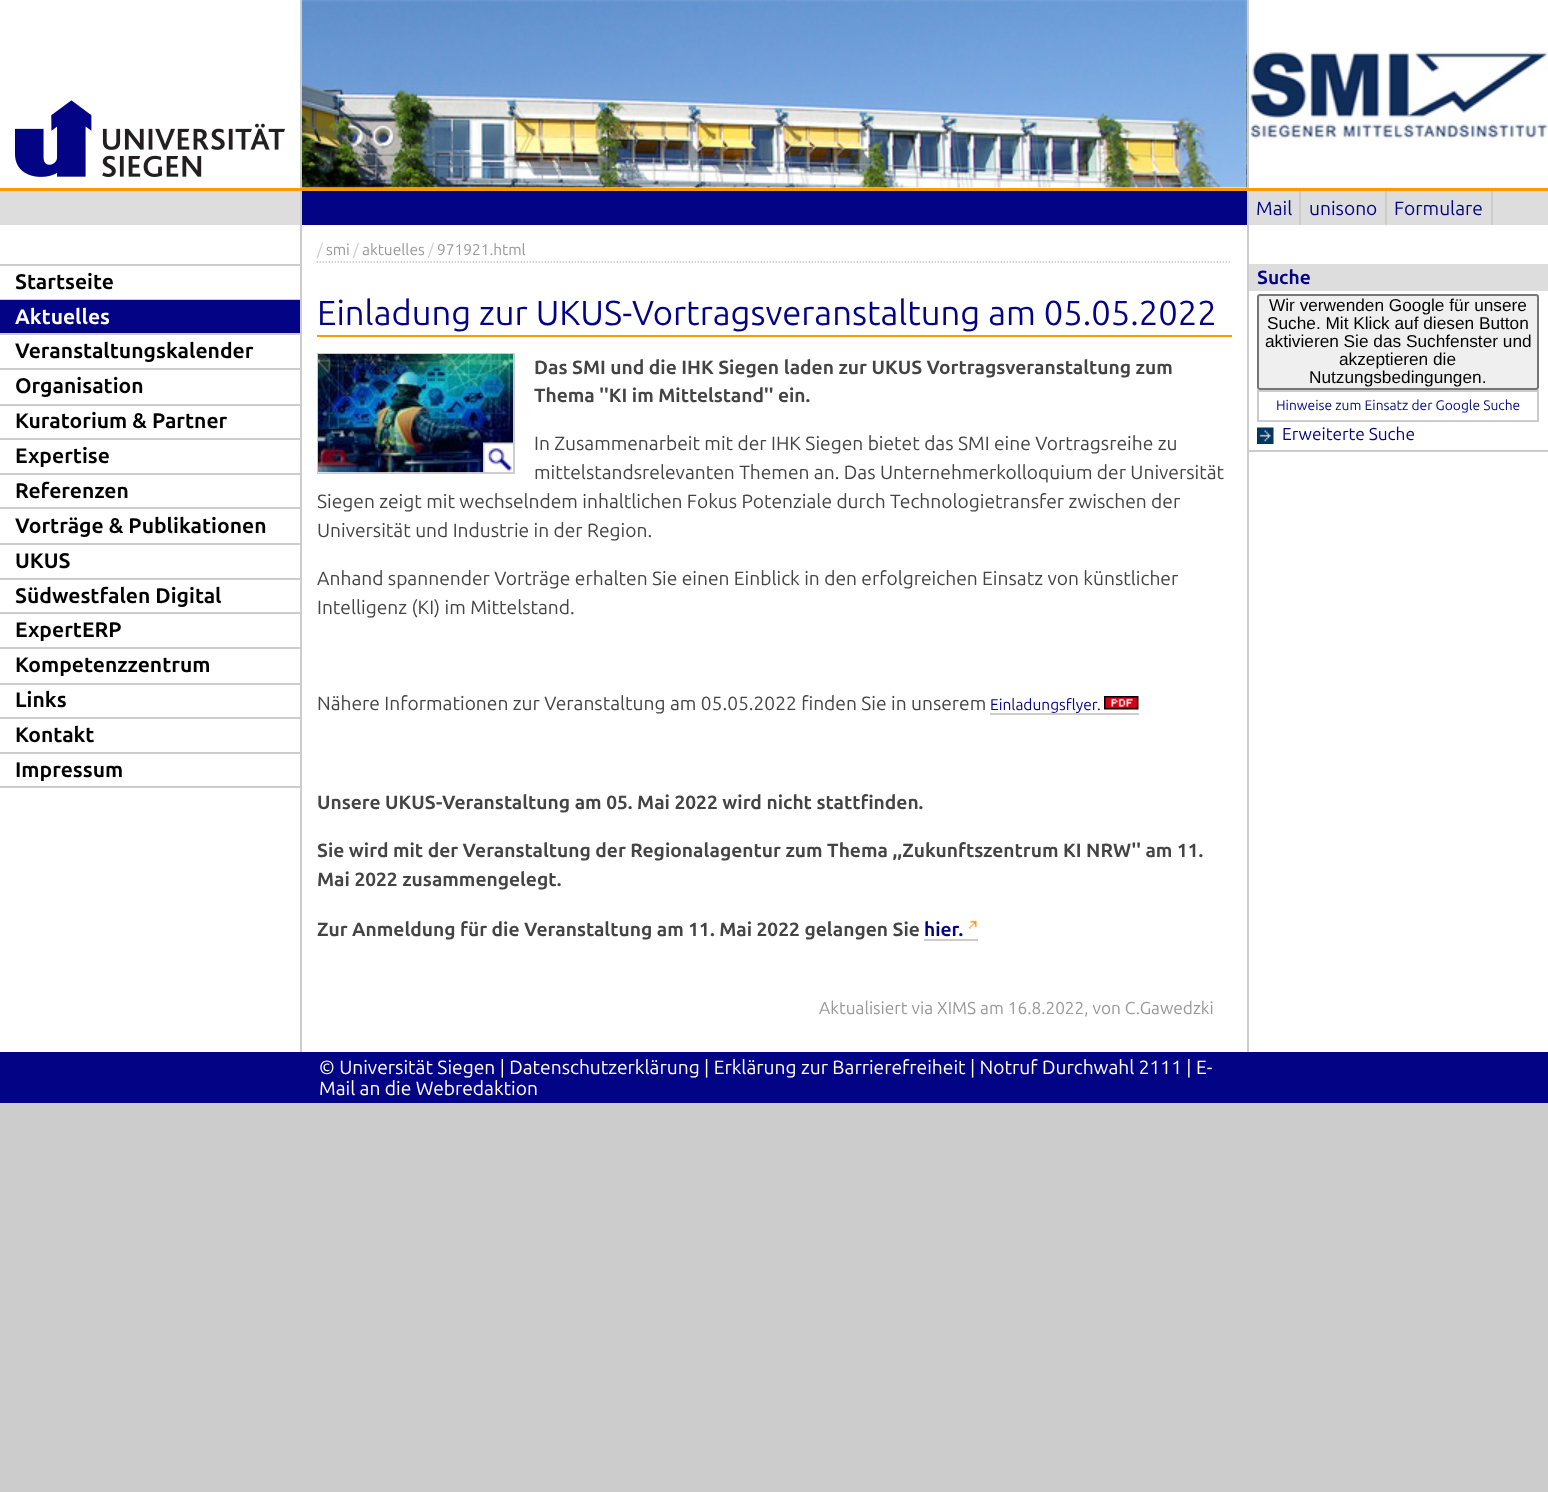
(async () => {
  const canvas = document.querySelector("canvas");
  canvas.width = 1548;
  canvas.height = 1492;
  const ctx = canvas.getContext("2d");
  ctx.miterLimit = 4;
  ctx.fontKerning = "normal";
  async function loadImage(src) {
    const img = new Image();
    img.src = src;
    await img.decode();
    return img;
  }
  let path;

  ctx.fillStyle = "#cccccc";
  ctx.fillRect(0, 0, 1548, 1492);
  for (const [x, y, w, h, color] of [
    [0, 0, 1548, 1052, "#ffffff"],
    [1248, 450, 300, 2, "#cccccc"],
    [1247, 0, 2, 1052, "#cccccc"],
    [300, 0, 2, 1052, "#cccccc"],
    [0, 188, 1548, 3, "#ff9900"],
  ]) {
    ctx.fillStyle = color;
    ctx.fillRect(x, y, w, h);
  }
  ctx.drawImage(await loadImage("img/1.png"), 15, 100, 270, 77);
  for (const [x, y, w, h, color] of [
    [0, 191, 300, 34, "#dddddd"],
    [0, 786, 300, 2, "#cccccc"],
    [0, 264, 300, 2, "#cccccc"],
    [0, 299, 300, 1, "#cccccc"],
    [0, 300, 300, 33, "#030385"],
    [0, 333, 300, 2, "#cccccc"],
    [0, 368, 300, 2, "#cccccc"],
    [0, 404, 300, 2, "#cccccc"],
    [0, 438, 300, 2, "#cccccc"],
    [0, 473, 300, 2, "#cccccc"],
    [0, 507, 300, 2, "#cccccc"],
    [0, 543, 300, 2, "#cccccc"],
    [0, 578, 300, 2, "#cccccc"],
    [0, 612, 300, 2, "#cccccc"],
    [0, 647, 300, 2, "#cccccc"],
    [0, 683, 300, 2, "#cccccc"],
    [0, 717, 300, 2, "#cccccc"],
    [0, 752, 300, 2, "#cccccc"],
  ]) {
    ctx.fillStyle = color;
    ctx.fillRect(x, y, w, h);
  }
  ctx.drawImage(await loadImage("img/2.png"), 302, 0, 945, 188);
  ctx.fillStyle = "#030385";
  ctx.fillRect(302, 191, 945, 34);
  path = new Path2D("M316.5 262H1231.5");
  ctx.strokeStyle = "#cccccc";
  ctx.lineWidth = 1.5;
  ctx.setLineDash([1.5, 1.5]);
  ctx.stroke(path);
  ctx.fillStyle = "#ff9900";
  ctx.fillRect(317, 335, 915, 2);
  ctx.lineWidth = 2;
  ctx.setLineDash([]);
  ctx.strokeRect(318, 354, 196, 119);
  ctx.fillStyle = "#ffffff";
  ctx.fillRect(318, 472, 195, 1);
  ctx.drawImage(await loadImage("img/3.png"), 318, 354, 195, 119);
  ctx.drawImage(await loadImage("img/4.png"), 483, 442, 30, 31);
  ctx.fillStyle = "#cccccc";
  ctx.fillRect(990, 713, 149, 2);
  ctx.drawImage(await loadImage("img/5.png"), 1104, 696, 35, 14);
  ctx.fillRect(924, 939, 54, 2);
  ctx.drawImage(await loadImage("img/6.png"), 968, 920, 9, 9);
  ctx.drawImage(await loadImage("img/7.png"), 1249, 50, 299, 91);
  for (const [x, y, w, h, color] of [
    [1249, 191, 299, 34, "#dddddd"],
    [1299, 191, 2, 34, "#cccccc"],
    [1385, 191, 2, 34, "#cccccc"],
    [1491, 191, 2, 34, "#cccccc"],
    [1249, 264, 299, 27, "#dddddd"],
  ]) {
    ctx.fillStyle = color;
    ctx.fillRect(x, y, w, h);
  }
  ctx.fillStyle = "#efefef";
  ctx.beginPath();
  ctx.roundRect(1258, 295, 280, 94, 2);
  ctx.fill();
  ctx.strokeStyle = "#767676";
  ctx.stroke();
  ctx.strokeStyle = "#cccccc";
  ctx.strokeRect(1258, 391, 280, 30);
  ctx.drawImage(await loadImage("img/8.png"), 1257, 427, 17, 17);
  ctx.fillStyle = "#030385";
  ctx.fillRect(0, 1052, 1548, 51);
  ctx.font = "bold 21.1px Ubuntu";
  ctx.fillStyle = "#000000";
  ctx.fillText("Startseite", 15, 289);
  ctx.fillStyle = "#ffffff";
  ctx.fillText("Aktuelles", 15, 324);
  ctx.fillStyle = "#000000";
  for (const [text, x, y] of [
    ["Veranstaltungskalender", 15, 358],
    ["Organisation", 15, 393],
    ["Kuratorium & Partner", 15, 428],
    ["Expertise", 15, 463],
    ["Referenzen", 15, 498],
    ["Vorträge & Publikationen", 15, 533],
    ["UKUS", 15, 568],
    ["Südwestfalen Digital", 15, 603],
    ["ExpertERP", 15, 637],
    ["Kompetenzzentrum", 15, 672],
    ["Links", 15, 707],
    ["Kontakt", 15, 742],
    ["Impressum", 15, 777],
  ]) {
    ctx.fillText(text, x, y);
  }
  ctx.font = "15.5px Ubuntu";
  ctx.fillStyle = "#cccccc";
  ctx.fillText("/", 317, 255);
  ctx.fillStyle = "#999999";
  ctx.fillText("smi", 326, 255);
  ctx.fillStyle = "#cccccc";
  ctx.fillText("/", 353, 255);
  ctx.fillStyle = "#999999";
  ctx.fillText("aktuelles", 362, 255);
  ctx.fillStyle = "#cccccc";
  ctx.fillText("/", 428, 255);
  ctx.fillStyle = "#999999";
  ctx.fillText("971921.html", 437, 255);
  ctx.font = "34.6px Ubuntu";
  ctx.fillStyle = "#030385";
  ctx.fillText("Einladung zur UKUS-Vortragsveranstaltung am 05.05.2022", 317, 325);
  ctx.font = "bold 19.2px Ubuntu";
  ctx.fillStyle = "#444444";
  ctx.fillText("Das SMI und die IHK Siegen laden zur UKUS Vortragsveranstaltung zum", 534, 374);
  ctx.fillText("Thema ''KI im Mittelstand'' ein.", 534, 402);
  ctx.font = "19.2px Ubuntu";
  for (const [text, x, y] of [
    ["In Zusammenarbeit mit der IHK Siegen bietet das SMI eine Vortragsreihe zu", 534, 450],
    ["mittelstandsrelevanten Themen an. Das Unternehmerkolloquium der Universität", 534, 479],
    ["Siegen zeigt mit wechselndem inhaltlichen Fokus Potenziale durch Technologietransfer zwischen der", 317, 508],
    ["Universität und Industrie in der Region.", 317, 537],
    ["Anhand spannender Vorträge erhalten Sie einen Einblick in den erfolgreichen Einsatz von künstlicher", 317, 585],
    ["Intelligenz (KI) im Mittelstand.", 317, 614],
    ["Nähere Informationen zur Veranstaltung am 05.05.2022 finden Sie in unserem", 317, 710],
  ]) {
    ctx.fillText(text, x, y);
  }
  ctx.font = "15.5px Ubuntu";
  ctx.fillStyle = "#030385";
  ctx.fillText("Einladungsflyer.", 990, 710);
  ctx.font = "bold 19.2px Ubuntu";
  ctx.fillStyle = "#444444";
  for (const [text, x, y] of [
    ["Unsere UKUS-Veranstaltung am 05. Mai 2022 wird nicht stattfinden.", 317, 809],
    ["Sie wird mit der Veranstaltung der Regionalagentur zum Thema ,,Zukunftszentrum KI NRW'' am 11.", 317, 857],
    ["Mai 2022 zusammengelegt.", 317, 886],
    ["Zur Anmeldung für die Veranstaltung am 11. Mai 2022 gelangen Sie", 317, 936],
  ]) {
    ctx.fillText(text, x, y);
  }
  ctx.fillStyle = "#030385";
  ctx.fillText("hier.", 924, 936);
  ctx.font = "17.25px Ubuntu";
  ctx.fillStyle = "#999999";
  ctx.fillText("Aktualisiert via XIMS am 16.8.2022, von C.Gawedzki", 819, 1014);
  ctx.font = "19.2px Ubuntu";
  ctx.fillStyle = "#030385";
  for (const [text, x, y] of [
    ["Mail", 1256, 215],
    ["unisono", 1309, 215],
    ["Formulare", 1394, 215],
  ]) {
    ctx.fillText(text, x, y);
  }
  ctx.font = "bold 19.2px Ubuntu";
  ctx.fillText("Suche", 1257, 284);
  ctx.font = "17.25px Liberation Sans";
  ctx.fillStyle = "#000000";
  for (const [text, x, y] of [
    ["Wir verwenden Google für unsere", 1269, 311],
    ["Suche. Mit Klick auf diesen Button", 1267, 329],
    ["aktivieren Sie das Suchfenster und", 1265, 347],
    ["akzeptieren die", 1339, 365],
    ["Nutzungsbedingungen.", 1309, 383],
  ]) {
    ctx.fillText(text, x, y);
  }
  ctx.font = "13.8px Ubuntu";
  ctx.fillStyle = "#030385";
  ctx.fillText("Hinweise zum Einsatz der Google Suche", 1276, 410);
  ctx.font = "17.25px Ubuntu";
  ctx.fillText("Erweiterte Suche", 1282, 440);
  ctx.font = "19.2px Ubuntu";
  ctx.fillStyle = "#ffffff";
  ctx.fillText("© Universität Siegen | Datenschutzerklärung | Erklärung zur Barrierefreiheit | Notruf Durchwahl 2111 | E-", 319, 1074);
  ctx.fillText("Mail an die Webredaktion", 319, 1095);
})();
